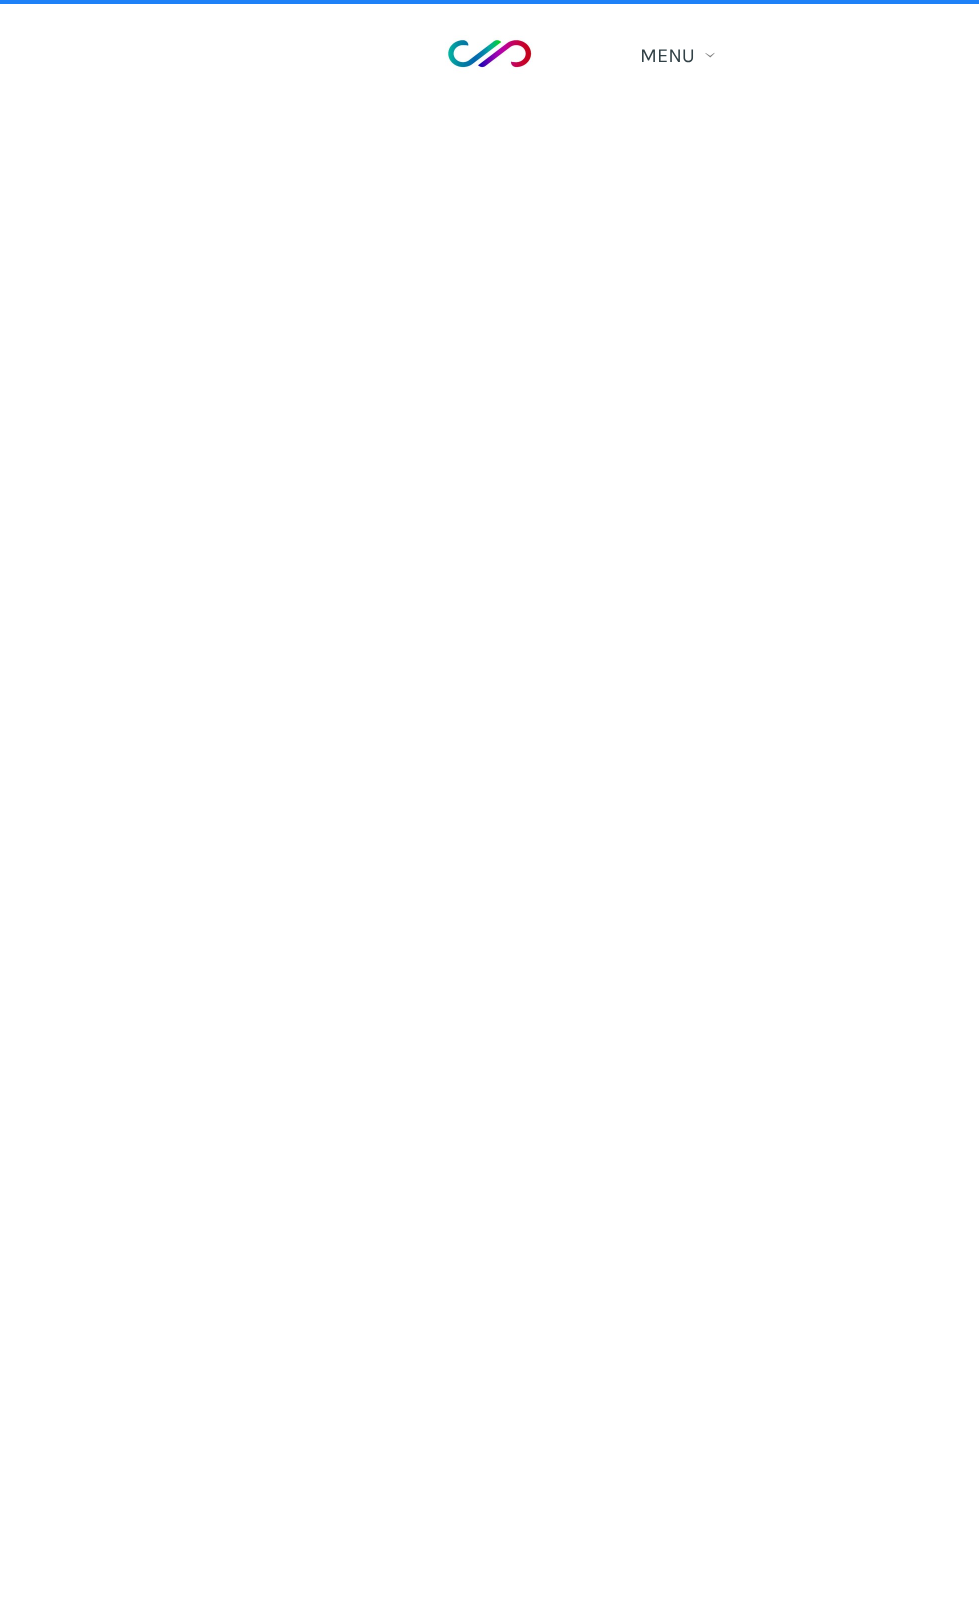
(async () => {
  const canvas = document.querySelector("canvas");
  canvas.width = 979;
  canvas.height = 1603;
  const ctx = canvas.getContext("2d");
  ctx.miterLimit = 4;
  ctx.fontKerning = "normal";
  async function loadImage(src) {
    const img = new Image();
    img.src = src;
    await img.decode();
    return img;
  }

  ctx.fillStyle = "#ffffff";
  ctx.fillRect(0, 0, 979, 1603);
  ctx.fillStyle = "#1e81f7";
  ctx.fillRect(0, 0, 979, 4);
  ctx.drawImage(await loadImage("img/1.png"), 445, 35, 88, 39);
  ctx.drawImage(await loadImage("img/2.png"), 705, 52, 10, 6);
  ctx.font = "20px Karla";
  ctx.fillStyle = "#324146";
  ctx.fillText("MENU", 640, 62);
})();
